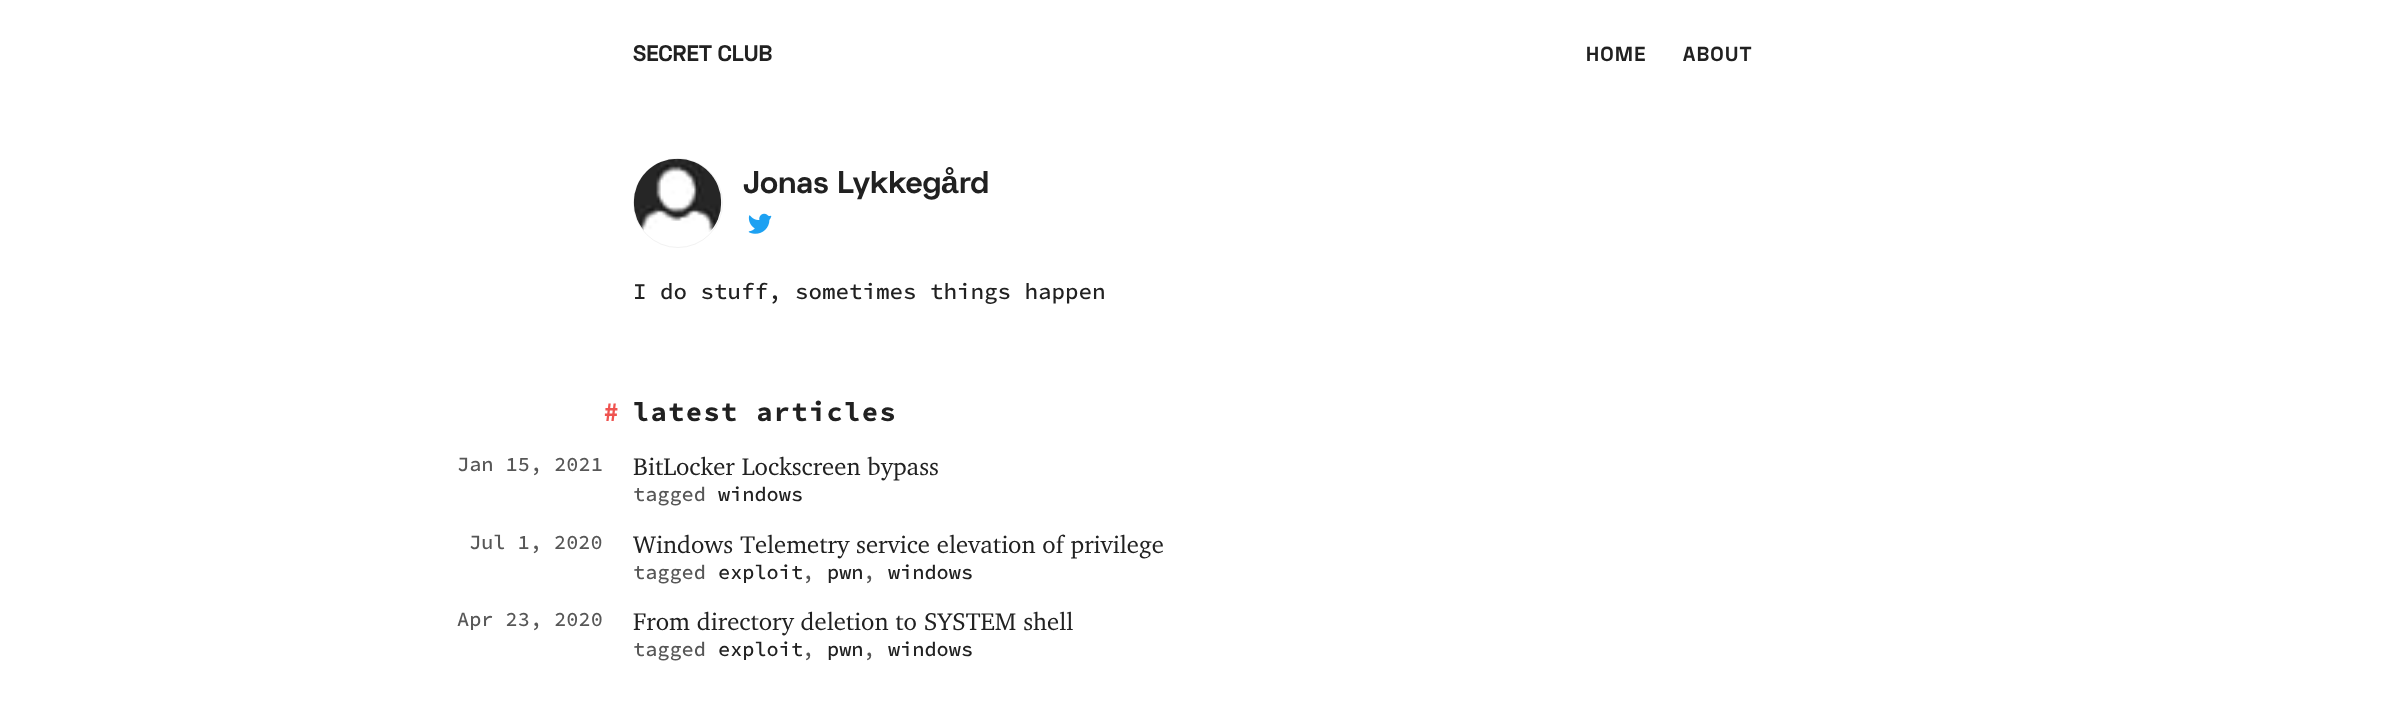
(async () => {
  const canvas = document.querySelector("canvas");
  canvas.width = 2385;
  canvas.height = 705;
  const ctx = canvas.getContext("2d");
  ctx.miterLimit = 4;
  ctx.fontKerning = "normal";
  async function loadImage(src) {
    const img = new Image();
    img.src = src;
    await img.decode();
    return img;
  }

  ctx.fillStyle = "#ffffff";
  ctx.fillRect(0, 0, 2385, 705);
  ctx.beginPath();
  ctx.arc(678, 203, 44.5, 0, Math.PI * 2);
  ctx.strokeStyle = "#f2f2f2";
  ctx.stroke();
  ctx.drawImage(await loadImage("img/1.png"), 633, 158, 89, 74);
  ctx.drawImage(await loadImage("img/2.png"), 748, 213, 24, 21);
  ctx.font = "bold 22.5px Space Grotesk";
  ctx.fillStyle = "#212121";
  ctx.fillText("SECRET CLUB", 633, 61);
  ctx.letterSpacing = "1.5px";
  ctx.font = "bold 20.25px Space Grotesk";
  ctx.fillText("HOME", 1586, 61);
  ctx.fillText("ABOUT", 1683, 61);
  ctx.letterSpacing = "0px";
  ctx.font = "bold 31.5px Space Grotesk";
  ctx.fillText("Jonas Lykkeg", 743, 193);
  ctx.font = "bold 31.5px Liberation Sans";
  ctx.fillText("å", 941, 193);
  ctx.font = "bold 31.5px Space Grotesk";
  ctx.fillText("rd", 959, 193);
  ctx.font = "500 22.5px Source Code Pro";
  ctx.fillText("I do stuff, sometimes things happen", 633, 299);
  ctx.letterSpacing = "1.4px";
  ctx.font = "bold 27px Source Code Pro";
  ctx.fillStyle = "#ef5350";
  ctx.fillText("#", 603, 421);
  ctx.fillStyle = "#212121";
  ctx.fillText("latest articles", 633, 421);
  ctx.letterSpacing = "0px";
  ctx.font = "500 20.25px Source Code Pro";
  ctx.fillStyle = "#575757";
  ctx.fillText("Jan 15, 2021", 457, 471);
  ctx.font = "24.75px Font";
  ctx.fillStyle = "#212121";
  ctx.fillText("BitLocker Lockscreen bypass", 633, 475);
  ctx.font = "500 20.25px Source Code Pro";
  ctx.fillStyle = "#575757";
  ctx.fillText("tagged", 633, 501);
  ctx.fillStyle = "#212121";
  ctx.fillText("windows", 718, 501);
  ctx.fillStyle = "#575757";
  ctx.fillText("Jul 1, 2020", 469, 549);
  ctx.font = "24.75px Font";
  ctx.fillStyle = "#212121";
  ctx.fillText("Windows Telemetry service elevation of privilege", 633, 553);
  ctx.font = "500 20.25px Source Code Pro";
  ctx.fillStyle = "#575757";
  ctx.fillText("tagged", 633, 579);
  ctx.fillStyle = "#212121";
  ctx.fillText("exploit", 718, 579);
  ctx.fillStyle = "#575757";
  ctx.fillText(",", 802, 579);
  ctx.fillStyle = "#212121";
  ctx.fillText("pwn", 827, 579);
  ctx.fillStyle = "#575757";
  ctx.fillText(",", 863, 579);
  ctx.fillStyle = "#212121";
  ctx.fillText("windows", 888, 579);
  ctx.fillStyle = "#575757";
  ctx.fillText("Apr 23, 2020", 457, 626);
  ctx.font = "24.75px Font";
  ctx.fillStyle = "#212121";
  ctx.fillText("From directory deletion to SYSTEM shell", 633, 630);
  ctx.font = "500 20.25px Source Code Pro";
  ctx.fillStyle = "#575757";
  ctx.fillText("tagged", 633, 656);
  ctx.fillStyle = "#212121";
  ctx.fillText("exploit", 718, 656);
  ctx.fillStyle = "#575757";
  ctx.fillText(",", 802, 656);
  ctx.fillStyle = "#212121";
  ctx.fillText("pwn", 827, 656);
  ctx.fillStyle = "#575757";
  ctx.fillText(",", 863, 656);
  ctx.fillStyle = "#212121";
  ctx.fillText("windows", 888, 656);
})();
